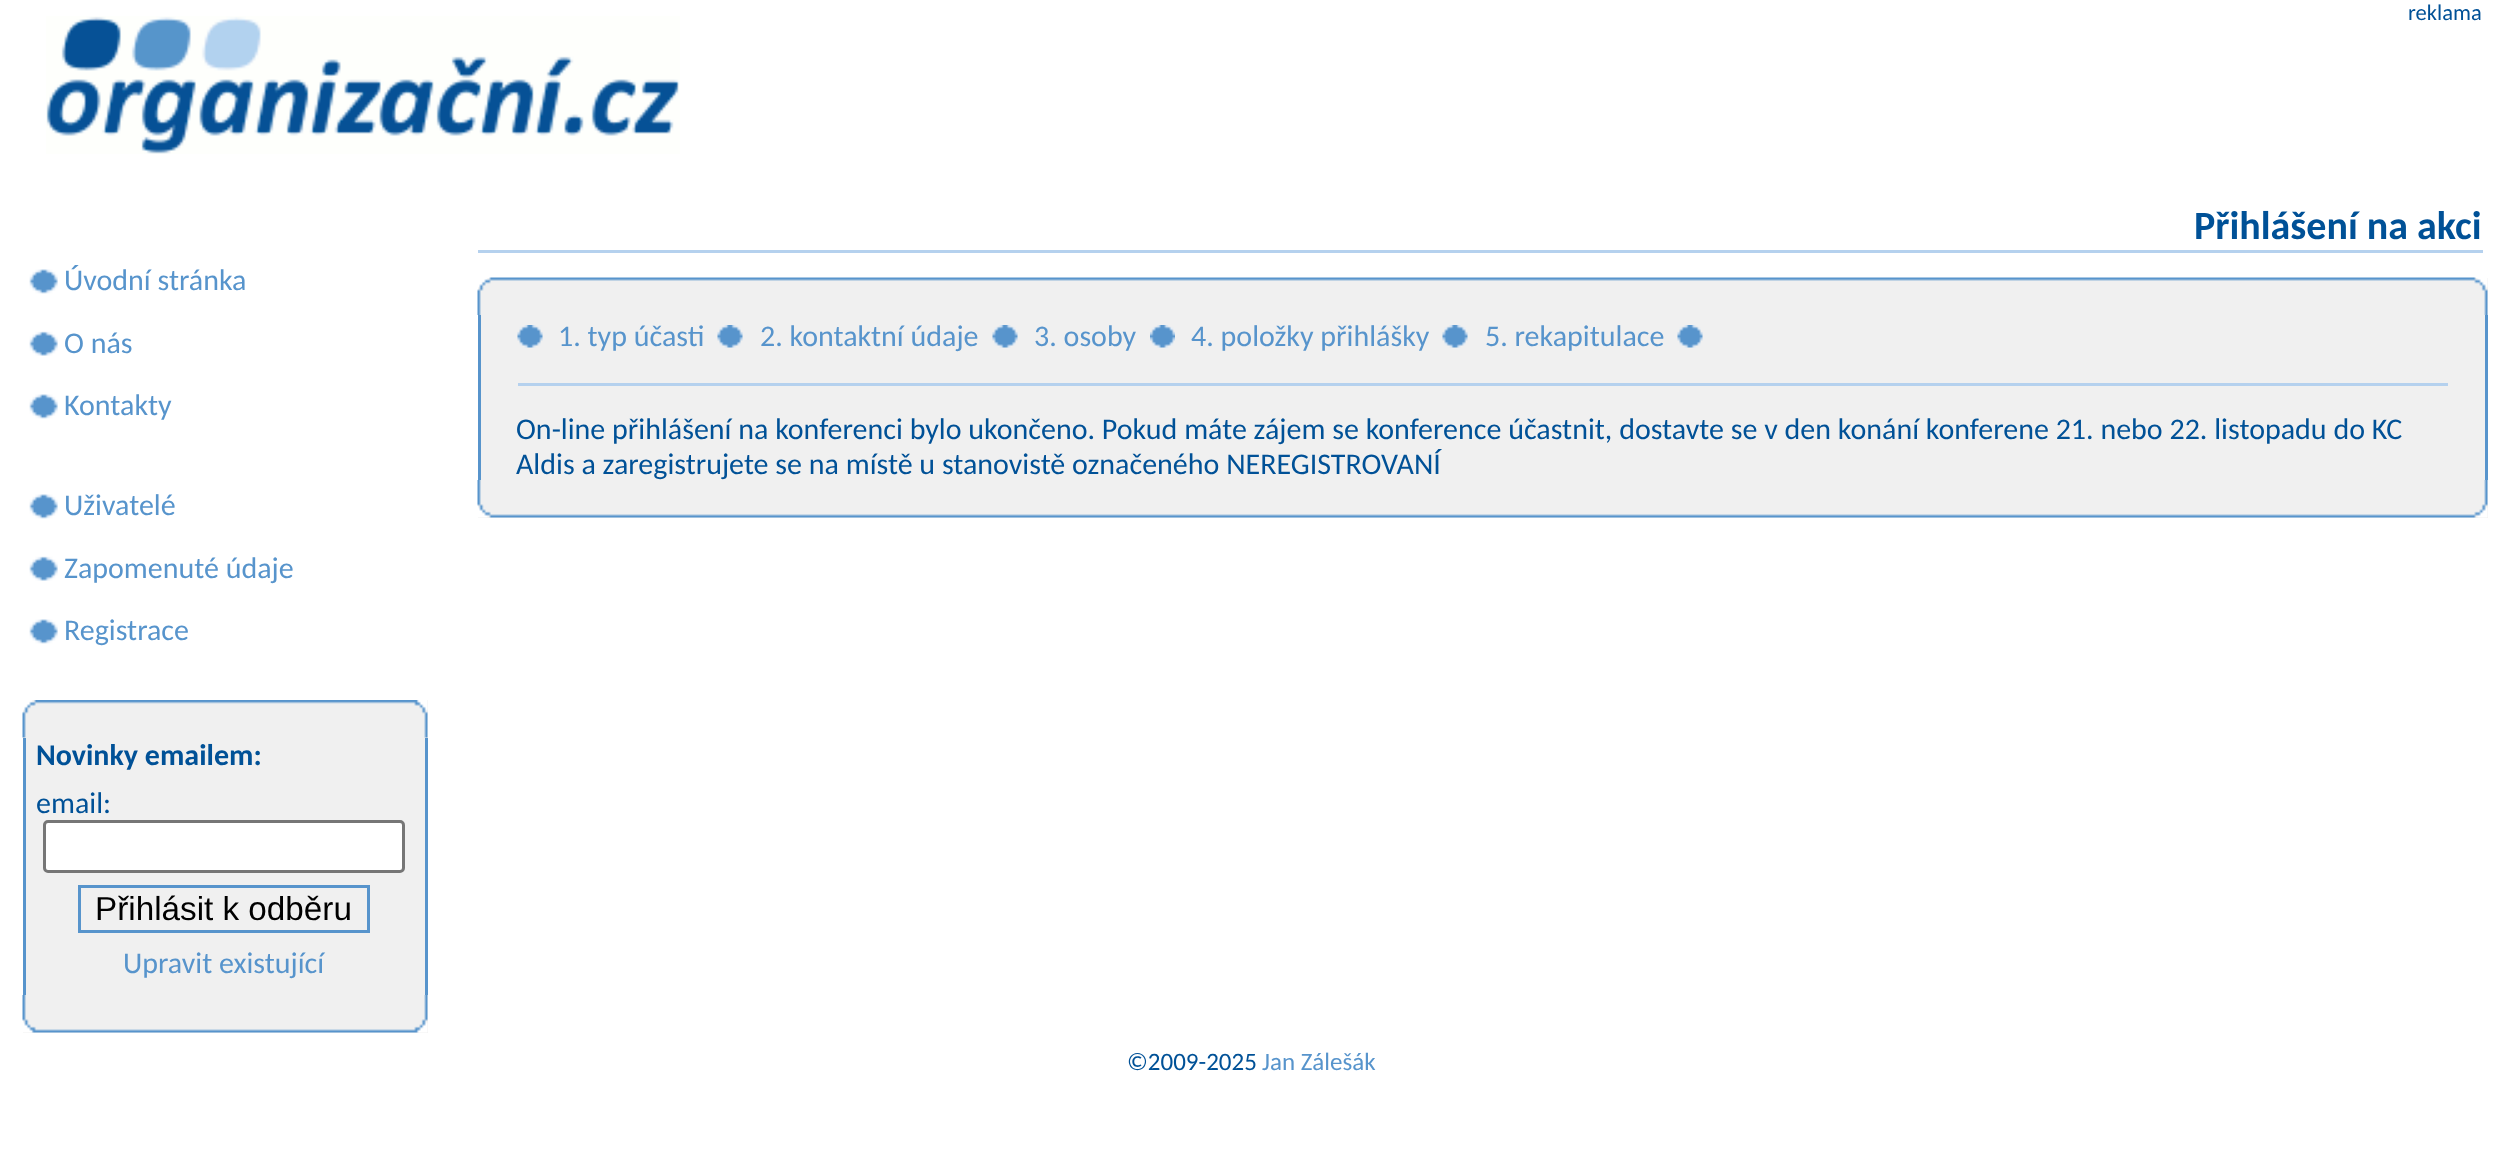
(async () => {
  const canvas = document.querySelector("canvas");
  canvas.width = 2501;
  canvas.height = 1152;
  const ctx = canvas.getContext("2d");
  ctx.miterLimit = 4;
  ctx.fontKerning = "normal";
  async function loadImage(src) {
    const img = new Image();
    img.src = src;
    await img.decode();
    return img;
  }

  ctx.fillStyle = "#ffffff";
  ctx.fillRect(0, 0, 2501, 1152);
  ctx.drawImage(await loadImage("img/1.png"), 46, 16, 634, 138);
  ctx.drawImage(await loadImage("img/2.png"), 29, 269, 29, 25);
  ctx.drawImage(await loadImage("img/3.png"), 29, 331, 29, 25);
  ctx.drawImage(await loadImage("img/2.png"), 29, 394, 29, 25);
  ctx.drawImage(await loadImage("img/2.png"), 29, 494, 29, 25);
  ctx.drawImage(await loadImage("img/3.png"), 29, 556, 29, 25);
  ctx.drawImage(await loadImage("img/2.png"), 29, 619, 29, 25);
  ctx.fillStyle = "#f0f0f0";
  ctx.fillRect(23, 700, 405, 38);
  ctx.drawImage(await loadImage("img/4.png"), 22, 700, 406, 38);
  for (const [x, y, w, h, color] of [
    [26, 738, 399, 257, "#f0f0f0"],
    [425, 738, 3, 257, "#5794cc"],
    [23, 738, 3, 257, "#5794cc"],
  ]) {
    ctx.fillStyle = color;
    ctx.fillRect(x, y, w, h);
  }
  ctx.fillStyle = "#ffffff";
  ctx.beginPath();
  ctx.roundRect(44.5, 821.5, 359, 50, 3.5);
  ctx.fill();
  ctx.strokeStyle = "#767676";
  ctx.lineWidth = 3;
  ctx.stroke();
  ctx.strokeStyle = "#5794cc";
  ctx.strokeRect(79.5, 886.5, 289, 45);
  ctx.fillStyle = "#f0f0f0";
  ctx.fillRect(23, 995, 405, 38);
  ctx.drawImage(await loadImage("img/5.png"), 22, 995, 406, 38);
  ctx.fillStyle = "#b5d1ee";
  ctx.fillRect(478, 250, 2005, 3);
  ctx.fillStyle = "#f0f0f0";
  ctx.fillRect(478, 278, 2010, 37);
  ctx.drawImage(await loadImage("img/6.png"), 477, 277, 2011, 38);
  for (const [x, y, w, h, color] of [
    [481, 315, 2004, 165, "#f0f0f0"],
    [2485, 315, 3, 165, "#5794cc"],
    [478, 315, 3, 165, "#5794cc"],
  ]) {
    ctx.fillStyle = color;
    ctx.fillRect(x, y, w, h);
  }
  ctx.drawImage(await loadImage("img/7.png"), 517, 325, 26, 23);
  ctx.drawImage(await loadImage("img/7.png"), 717, 325, 26, 23);
  ctx.drawImage(await loadImage("img/8.png"), 992, 325, 26, 23);
  ctx.drawImage(await loadImage("img/9.png"), 1150, 325, 25, 23);
  ctx.drawImage(await loadImage("img/7.png"), 1442, 325, 26, 23);
  ctx.drawImage(await loadImage("img/8.png"), 1677, 325, 26, 23);
  ctx.fillStyle = "#b5d1ee";
  ctx.fillRect(518, 383, 1930, 3);
  ctx.fillStyle = "#f0f0f0";
  ctx.fillRect(478, 480, 2010, 38);
  ctx.drawImage(await loadImage("img/10.png"), 477, 480, 2011, 38);
  ctx.font = "22.5px Carlito";
  ctx.fillStyle = "#005197";
  ctx.fillText("reklama", 2408, 20);
  ctx.font = "30px Carlito";
  ctx.fillStyle = "#5794cc";
  for (const [text, x, y] of [
    ["Úvodní stránka", 64, 290],
    ["O nás", 64, 353],
    ["Kontakty", 64, 415],
    ["Uživatelé", 64, 515],
    ["Zapomenuté údaje", 64, 578],
    ["Registrace", 64, 640],
  ]) {
    ctx.fillText(text, x, y);
  }
  ctx.font = "bold 30px Carlito";
  ctx.fillStyle = "#005197";
  ctx.fillText("Novinky emailem:", 36, 765);
  ctx.font = "30px Carlito";
  ctx.fillText("email:", 36, 813);
  ctx.font = "33.25px Liberation Sans";
  ctx.fillStyle = "#000000";
  ctx.fillText("Přihlásit k odběru", 95, 920);
  ctx.font = "30px Carlito";
  ctx.fillStyle = "#5794cc";
  ctx.fillText("Upravit existující", 123, 973);
  ctx.font = "bold 40px Carlito";
  ctx.fillStyle = "#005197";
  ctx.fillText("Přihlášení na akci", 2194, 239);
  ctx.font = "30px Carlito";
  ctx.fillStyle = "#5794cc";
  for (const [text, x, y] of [
    ["1. typ účasti", 558, 346],
    ["2. kontaktní údaje", 760, 346],
    ["3. osoby", 1034, 346],
    ["4. položky přihlášky", 1191, 346],
    ["5. rekapitulace", 1485, 346],
  ]) {
    ctx.fillText(text, x, y);
  }
  ctx.fillStyle = "#005197";
  ctx.fillText("On-line přihlášení na konferenci bylo ukončeno. Pokud máte zájem se konference účastnit, dostavte se v den konání konferene 21. nebo 22. listopadu do KC", 516, 439);
  ctx.fillText("Aldis a zaregistrujete se na místě u stanovistě označeného NEREGISTROVANÍ", 516, 474);
  ctx.font = "25px Carlito";
  ctx.fillText("©2009-2025", 1127, 1070);
  ctx.fillStyle = "#5794cc";
  ctx.fillText("Jan Zálešák", 1262, 1070);
})();
